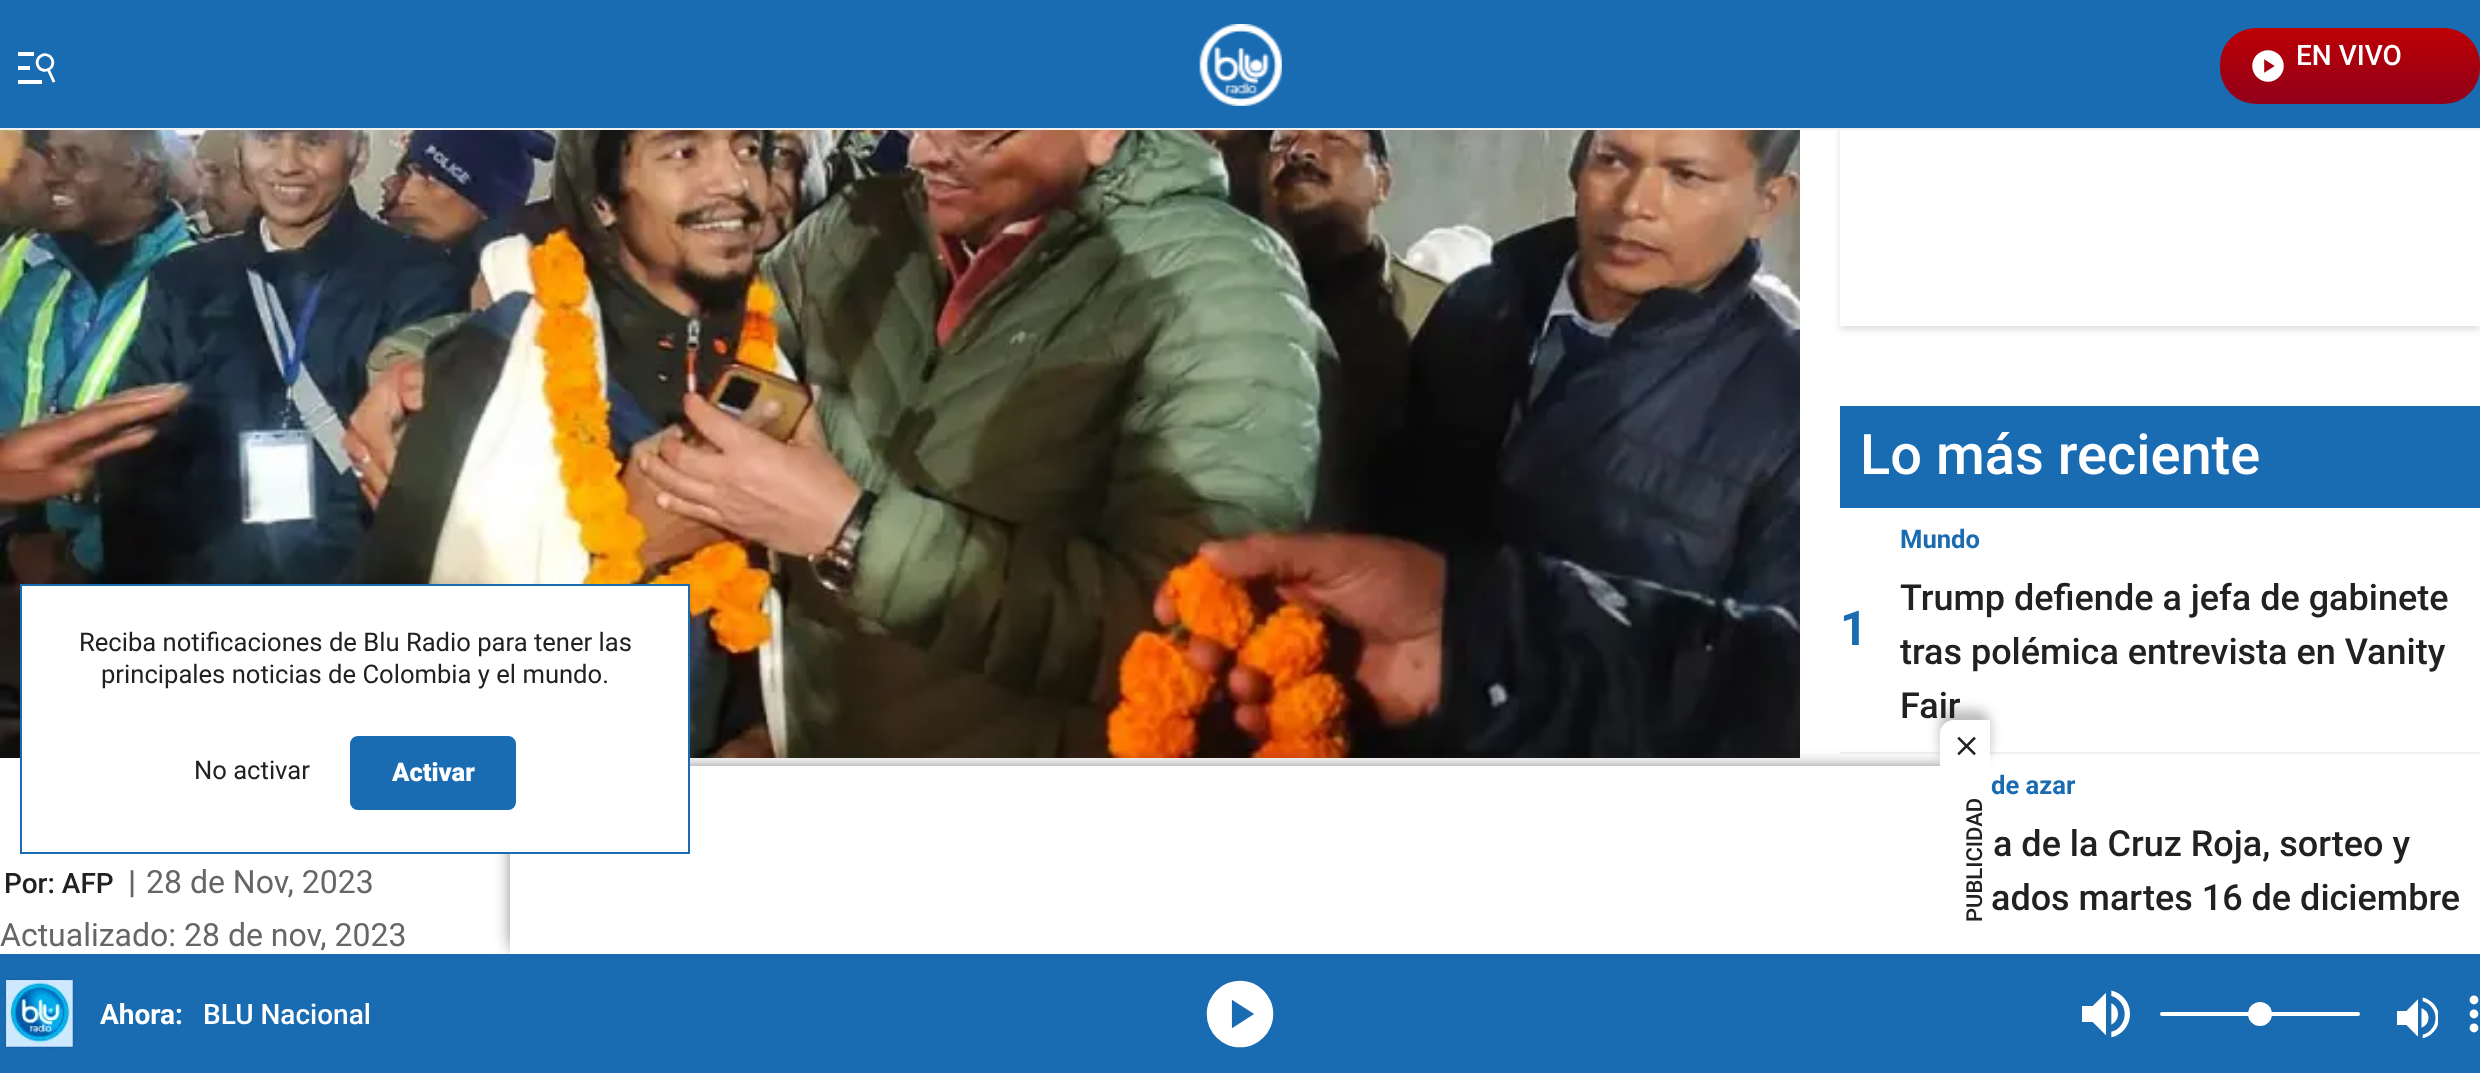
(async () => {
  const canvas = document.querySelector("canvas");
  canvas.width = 2480;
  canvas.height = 1073;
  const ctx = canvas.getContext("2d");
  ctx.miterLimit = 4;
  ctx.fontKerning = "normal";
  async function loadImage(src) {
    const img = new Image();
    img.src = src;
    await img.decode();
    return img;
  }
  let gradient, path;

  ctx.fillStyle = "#ffffff";
  ctx.fillRect(0, 0, 2480, 1073);
  ctx.save();
  path = new Path2D("M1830 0H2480V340H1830ZM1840-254H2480V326H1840Z");
  ctx.clip(path, "evenodd");
  ctx.fillStyle = "rgba(86, 86, 86, 0.18)";
  ctx.filter = "blur(3px)";
  ctx.beginPath();
  ctx.rect(1840, -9, 640, 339);
  ctx.fill();
  ctx.filter = "none";
  ctx.restore();
  ctx.fillStyle = "#196bb2";
  ctx.fillRect(0, 0, 2480, 128);
  ctx.fillStyle = "#f1f1f1";
  ctx.fillRect(0, 128, 2480, 2);
  ctx.drawImage(await loadImage("img/1.png"), 18, 52, 38, 32);
  ctx.drawImage(await loadImage("img/2.png"), 1199, 24, 83, 82);
  gradient = ctx.createLinearGradient(2350, 28, 2350, 104);
  gradient.addColorStop(0, "#bd0005");
  gradient.addColorStop(1, "#910019");
  ctx.fillStyle = gradient;
  ctx.beginPath();
  ctx.roundRect(2220, 28, 260, 76, 36);
  ctx.fill();
  ctx.drawImage(await loadImage("img/3.png"), 2252, 50, 32, 32);
  ctx.drawImage(await loadImage("img/4.png"), 0, 130, 1800, 628);
  ctx.fillStyle = "#196bb2";
  ctx.fillRect(1840, 406, 640, 102);
  ctx.fillStyle = "#f1f1f1";
  ctx.fillRect(1840, 752, 640, 2);
  ctx.fillStyle = "#212121";
  ctx.filter = "blur(10px)";
  ctx.beginPath();
  ctx.rect(516, 772, 1448, 176);
  ctx.fill();
  ctx.filter = "none";
  ctx.fillStyle = "#ffffff";
  ctx.fillRect(510, 766, 1454, 188);
  ctx.beginPath();
  ctx.rect(21, 585, 668, 268);
  ctx.fill();
  ctx.strokeStyle = "#196bb2";
  ctx.lineWidth = 2;
  ctx.stroke();
  ctx.fillStyle = "#196bb2";
  ctx.beginPath();
  ctx.roundRect(351, 737, 164, 72, 7);
  ctx.fill();
  ctx.stroke();
  ctx.fillStyle = "#ffffff";
  ctx.fillRect(1964, 770, 23, 184);
  ctx.fillStyle = "rgba(33, 33, 33, 0.3)";
  ctx.filter = "blur(6px)";
  ctx.beginPath();
  ctx.roundRect(1940, 710, 50, 50, 14);
  ctx.fill();
  ctx.filter = "none";
  ctx.fillStyle = "#ffffff";
  ctx.beginPath();
  ctx.roundRect(1940, 720, 50, 50, [14, 0, 0, 0]);
  ctx.fill();
  ctx.drawImage(await loadImage("img/5.png"), 1957, 736, 19, 20);
  ctx.fillStyle = "#196bb2";
  ctx.fillRect(0, 954, 2480, 119);
  ctx.drawImage(await loadImage("img/6.png"), 4, 978, 71, 71);
  ctx.drawImage(await loadImage("img/7.png"), 1206, 980, 68, 68);
  ctx.drawImage(await loadImage("img/8.png"), 2082, 990, 48, 48);
  ctx.fillStyle = "#ffffff";
  ctx.beginPath();
  ctx.roundRect(2160, 1012, 200, 4, 2);
  ctx.fill();
  ctx.beginPath();
  ctx.arc(2260, 1014, 12, 0, Math.PI * 2);
  ctx.fill();
  ctx.drawImage(await loadImage("img/9.png"), 2397, 997, 41, 41);
  ctx.drawImage(await loadImage("img/10.png"), 2469, 995, 10, 38);
  ctx.font = "500 28px Roboto";
  ctx.fillText("EN VIVO", 2296, 65);
  ctx.fillStyle = "#212121";
  ctx.fillText("Por: AFP", 4, 893);
  ctx.font = "bold 32px Roboto";
  ctx.fillStyle = "#666666";
  ctx.fillText("|", 128, 893);
  ctx.font = "32px Roboto";
  ctx.fillText("28 de Nov, 2023", 146, 893);
  ctx.fillText("Actualizado: 28 de nov, 2023", 0, 946);
  ctx.font = "500 56px Roboto";
  ctx.fillStyle = "#ffffff";
  ctx.fillText("Lo más reciente", 1860, 474);
  ctx.font = "bold 48px Roboto";
  ctx.fillStyle = "#196bb2";
  ctx.fillText("1", 1840, 645);
  ctx.font = "bold 25.6px Roboto";
  ctx.fillText("Mundo", 1900, 548);
  ctx.font = "500 36px Roboto";
  ctx.fillStyle = "#212121";
  for (const [text, x, y] of [
    ["Trump defiende a jefa de gabinete", 1900, 610],
    ["tras polémica entrevista en Vanity", 1900, 664],
    ["Fair", 1900, 718],
  ]) {
    ctx.fillText(text, x, y);
  }
  ctx.font = "bold 25.6px Roboto";
  ctx.fillStyle = "#196bb2";
  ctx.fillText("de azar", 1991, 794);
  ctx.font = "500 36px Roboto";
  ctx.fillStyle = "#212121";
  ctx.fillText("a de la Cruz Roja, sorteo y", 1993, 856);
  ctx.fillText("ados martes 16 de diciembre", 1991, 910);
  ctx.font = "25.6px Roboto";
  for (const [text, x, y] of [
    ["Reciba notificaciones de Blu Radio para tener las", 79, 651],
    ["principales noticias de Colombia y el mundo.", 101, 683],
    ["No activar", 194, 779],
  ]) {
    ctx.fillText(text, x, y);
  }
  ctx.font = "900 25.6px Roboto";
  ctx.fillStyle = "#ffffff";
  ctx.fillText("Activar", 392, 781);
  ctx.font = "500 22px Roboto";
  ctx.fillStyle = "#212121";
  ctx.save();
  ctx.translate(1982, 922);
  ctx.rotate(-90 * Math.PI / 180);
  ctx.fillText("PUBLICIDAD", 0, 0);
  ctx.restore();
  ctx.font = "bold 28px Roboto";
  ctx.fillStyle = "#ffffff";
  ctx.fillText("Ahora:", 100, 1024);
  ctx.font = "500 28px Roboto";
  ctx.fillText("BLU Nacional", 203, 1024);
})();
